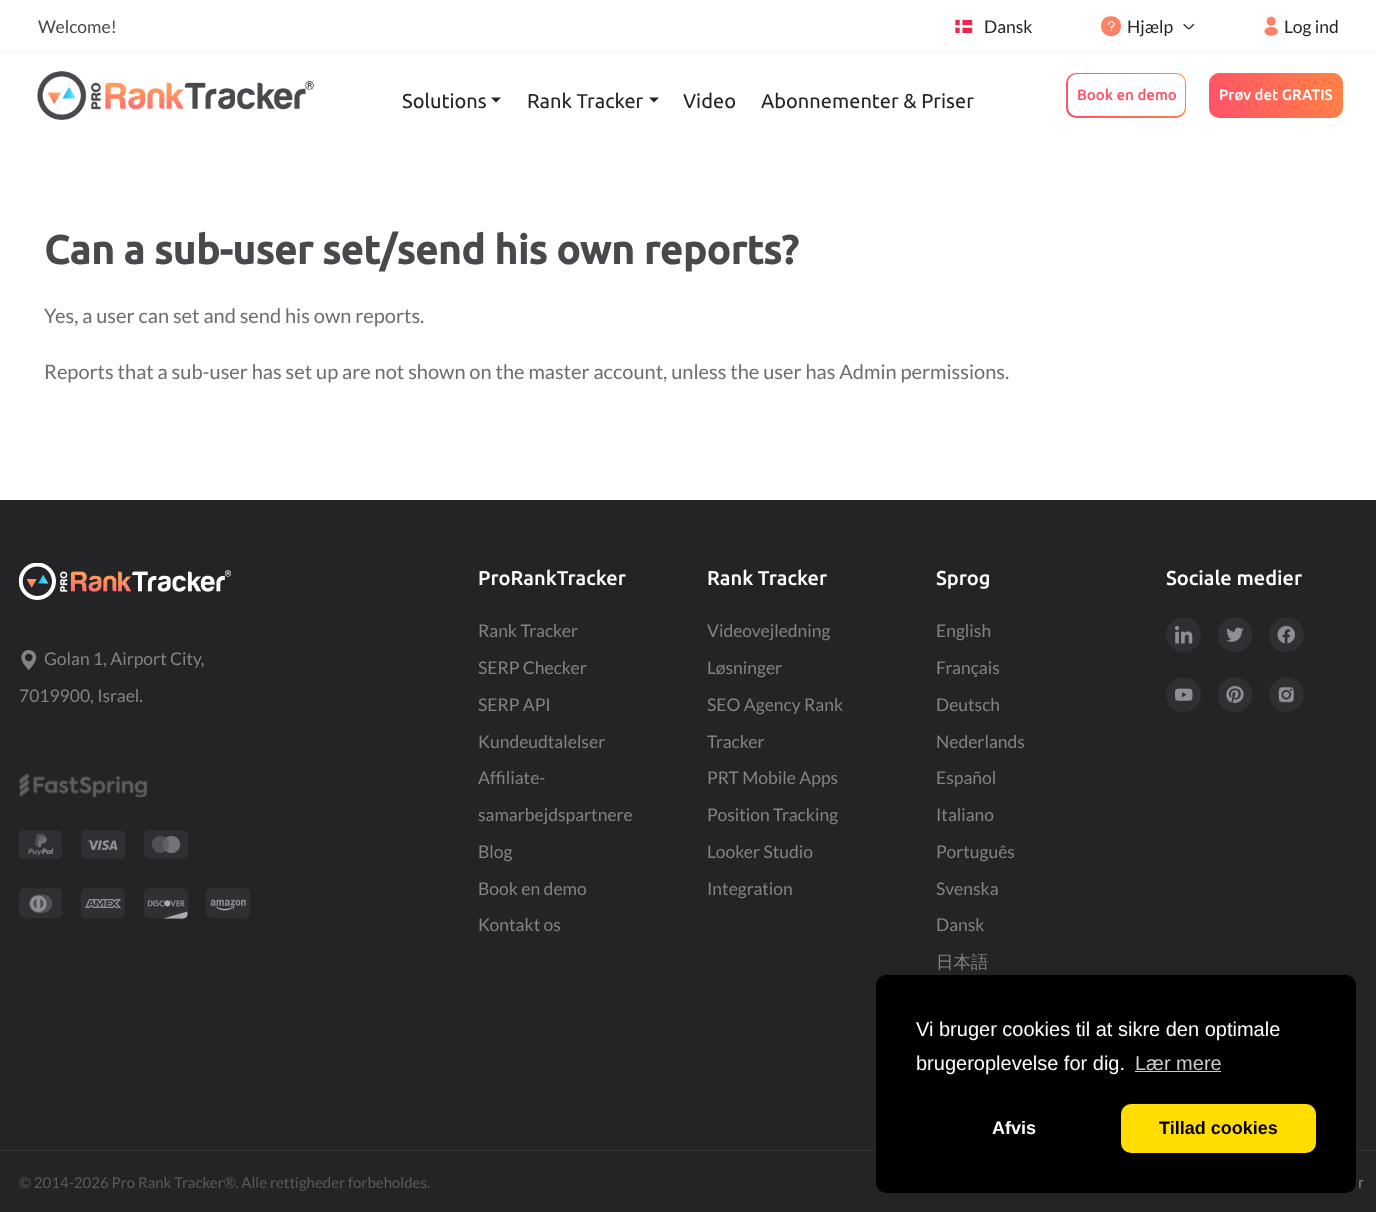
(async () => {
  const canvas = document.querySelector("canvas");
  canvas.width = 1376;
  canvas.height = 1212;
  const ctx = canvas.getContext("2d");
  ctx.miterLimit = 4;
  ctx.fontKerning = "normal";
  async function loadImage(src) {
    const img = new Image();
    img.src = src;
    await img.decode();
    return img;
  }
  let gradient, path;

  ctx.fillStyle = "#ffffff";
  ctx.fillRect(0, 0, 1376, 1212);
  ctx.fillStyle = "#f5f5f9";
  ctx.fillRect(0, 51, 1376, 1);
  ctx.drawImage(await loadImage("img/1.png"), 955, 19, 18, 14);
  ctx.drawImage(await loadImage("img/2.png"), 955, 19, 18, 14);
  path = new Path2D("M1193.5 24.5C1188 30 1189.5 30 1184 24.5");
  ctx.strokeStyle = "#242427";
  ctx.lineWidth = 1.2;
  ctx.lineCap = "round";
  ctx.lineJoin = "round";
  ctx.stroke(path);
  ctx.fillStyle = "#ff8066";
  path = new Path2D("M1121 26C1121 39.5 1101 39.5 1101 26C1101 13 1121 13 1121 26Z");
  ctx.fill(path);
  ctx.drawImage(await loadImage("img/3.png"), 1107, 21, 8, 8);
  ctx.drawImage(await loadImage("img/4.png"), 1110, 29, 2, 3);
  ctx.drawImage(await loadImage("img/5.png"), 1264, 16, 14, 20);
  ctx.drawImage(await loadImage("img/6.png"), 37, 71, 277, 49);
  ctx.fillStyle = "#242427";
  path = new Path2D("M491 97.5H501L496 102.5Z");
  ctx.fill(path);
  path = new Path2D("M649 97.5H659L654 102.5Z");
  ctx.fill(path);
  gradient = ctx.createLinearGradient(1064, 114, 1205, 71);
  gradient.addColorStop(0, "#ff5169");
  gradient.addColorStop(1, "#ff8a3f");
  ctx.fillStyle = gradient;
  ctx.beginPath();
  ctx.roundRect(1066, 73, 120, 45, 10);
  ctx.fill();
  ctx.fillStyle = "#ffffff";
  path = new Path2D("M1077 74C1072 74 1068 78 1068 83V107C1068 112 1072 116 1077 116H1176C1181 116 1185 112 1185 107V83C1185 78 1181 74 1176 74Z");
  ctx.fill(path);
  gradient = ctx.createLinearGradient(1207, 116, 1362, 69);
  gradient.addColorStop(0, "#ff5169");
  gradient.addColorStop(1, "#ff8a3f");
  ctx.fillStyle = gradient;
  ctx.beginPath();
  ctx.roundRect(1209, 73, 134, 45, 10);
  ctx.fill();
  ctx.fillStyle = "#242427";
  ctx.fillRect(0, 500, 1376, 712);
  ctx.drawImage(await loadImage("img/7.png"), 19, 563, 212, 37);
  ctx.drawImage(await loadImage("img/8.png"), 21, 650, 16, 20);
  ctx.drawImage(await loadImage("img/9.png"), 19, 774, 129, 23);
  ctx.fillStyle = "#303034";
  path = new Path2D("M24 830H52C65 830 62 832 62 845C62 849 65 859 57 859H30C17 859 19 857 19 845C19 840 17 830 24 830Z");
  ctx.fill(path);
  ctx.drawImage(await loadImage("img/11.png"), 35, 834, 12, 13);
  ctx.drawImage(await loadImage("img/13.png"), 37, 837, 10, 11);
  ctx.drawImage(await loadImage("img/12.png"), 39, 836, 7, 5);
  ctx.drawImage(await loadImage("img/10.png"), 35, 833, 11, 13);
  ctx.drawImage(await loadImage("img/14.png"), 28, 848, 14, 8);
  ctx.drawImage(await loadImage("img/15.png"), 42, 848, 12, 6);
  path = new Path2D("M87 830H114C127 830 125 832 125 845C125 849 127 859 120 859H92C79 859 81 857 81 845C81 840 79 830 87 830Z");
  ctx.fill(path);
  ctx.drawImage(await loadImage("img/16.png"), 87, 840, 31, 10);
  path = new Path2D("M149 830H177C190 830 188 832 188 845C188 849 190 859 182 859H155C142 859 144 857 144 845C144 840 142 830 149 830Z");
  ctx.fill(path);
  ctx.drawImage(await loadImage("img/17.png"), 152, 836, 28, 17);
  ctx.drawImage(await loadImage("img/18.png"), 166, 836, 14, 17);
  ctx.drawImage(await loadImage("img/19.png"), 163, 838, 6, 13);
  path = new Path2D("M24 888H52C65 888 62 891 62 903C62 908 65 918 57 918H30C17 918 19 916 19 903C19 899 17 888 24 888Z");
  ctx.fill(path);
  ctx.drawImage(await loadImage("img/20.png"), 29, 894, 23, 19);
  ctx.drawImage(await loadImage("img/22.png"), 30, 895, 7, 17);
  ctx.drawImage(await loadImage("img/21.png"), 29, 895, 23, 18);
  ctx.drawImage(await loadImage("img/23.png"), 30, 895, 17, 17);
  path = new Path2D("M87 888H114C127 888 125 891 125 903C125 908 127 918 120 918H92C79 918 81 916 81 903C81 899 79 888 87 888Z");
  ctx.fill(path);
  ctx.drawImage(await loadImage("img/24.png"), 85, 899, 37, 9);
  path = new Path2D("M149 888H177C190 888 188 891 188 903C188 908 190 918 182 918H155C142 918 144 916 144 903C144 899 142 888 149 888Z");
  ctx.fill(path);
  ctx.drawImage(await loadImage("img/25.png"), 147, 900, 38, 7);
  ctx.drawImage(await loadImage("img/26.png"), 164, 900, 7, 7);
  ctx.fillStyle = "#aaaab1";
  path = new Path2D("M163 918.5L187.5 911.5V915C186.5 920 180 918.5 176.5 918.5Z");
  ctx.fill(path);
  ctx.fillStyle = "#303034";
  path = new Path2D("M212 888H239C252 888 250 891 250 903C250 908 252 918 245 918H217C204 918 206 916 206 903C206 899 204 888 212 888Z");
  ctx.fill(path);
  ctx.drawImage(await loadImage("img/27.png"), 210, 899, 36, 7);
  ctx.drawImage(await loadImage("img/28.png"), 215, 906, 20, 5);
  path = new Path2D("M1166 634.5C1166 652 1188.5 658.5 1198.5 644.5C1200 641.5 1201 638 1201 634.5C1201 631 1200 628 1198.5 625C1188.5 610.5 1166 617.5 1166 634.5Z");
  ctx.fill(path);
  ctx.drawImage(await loadImage("img/29.png"), 1175, 626, 18, 18);
  path = new Path2D("M1217.5 634.5C1217.5 638 1218.5 641.5 1220.5 644.5C1230 658.5 1252.5 652 1252.5 634.5C1252.5 617.5 1230 610.5 1220.5 625C1218.5 628 1217.5 631 1217.5 634.5Z");
  ctx.fill(path);
  ctx.drawImage(await loadImage("img/30.png"), 1226, 627, 18, 15);
  path = new Path2D("M1269 634.5C1269 638 1270 641.5 1271.5 644.5C1281.5 658.5 1304 652 1304 634.5C1304 631 1302.5 628 1301 625C1291 610.5 1269 617.5 1269 634.5Z");
  ctx.fill(path);
  ctx.drawImage(await loadImage("img/31.png"), 1277, 626, 18, 18);
  path = new Path2D("M1166 694.5C1166 698 1167.5 701.5 1169 704.5C1179 718.5 1201 712 1201 694.5C1201 677.5 1179 670.5 1169 685C1167.5 688 1166 691 1166 694.5Z");
  ctx.fill(path);
  ctx.drawImage(await loadImage("img/32.png"), 1175, 688, 18, 13);
  path = new Path2D("M1217.5 694.5C1217.5 698 1218.5 701.5 1220.5 704.5C1230 718.5 1252.5 712 1252.5 694.5C1252.5 691 1251.5 688 1249.5 685C1240 670.5 1217.5 677.5 1217.5 694.5Z");
  ctx.fill(path);
  ctx.drawImage(await loadImage("img/33.png"), 1226, 686, 18, 17);
  path = new Path2D("M1269 694.5C1269 673.5 1299.5 670.5 1303.5 691C1304.5 695.5 1303.5 700 1301 704C1298 708.5 1293 712 1287 712C1277.5 712.5 1269 704.5 1269 694.5Z");
  ctx.fill(path);
  ctx.drawImage(await loadImage("img/35.png"), 1283, 691, 7, 7);
  ctx.drawImage(await loadImage("img/34.png"), 1278, 687, 16, 16);
  ctx.fillStyle = "#333336";
  ctx.fillRect(0, 1150, 1376, 1);
  ctx.fillStyle = "#000000";
  ctx.beginPath();
  ctx.roundRect(876, 975, 480, 218, 10);
  ctx.fill();
  ctx.fillStyle = "#cccccc";
  ctx.fillRect(1135, 1071, 86, 1);
  ctx.fillStyle = "#ffdd00";
  ctx.beginPath();
  ctx.roundRect(1121, 1104, 195, 49, 10);
  ctx.fill();
  ctx.font = "17.5px Lato";
  ctx.fillStyle = "#48484d";
  ctx.fillText("Welcome!", 38, 33);
  ctx.fillStyle = "#242427";
  for (const [text, x, y] of [
    ["Dansk", 984, 33],
    ["Hjælp", 1127, 33],
    ["Log ind", 1284, 33],
  ]) {
    ctx.fillText(text, x, y);
  }
  ctx.font = "20px Ubuntu";
  for (const [text, x, y] of [
    ["Solutions", 402, 108],
    ["Rank Tracker", 527, 108],
    ["Video", 683, 108],
    ["Abonnementer & Priser", 761, 108],
  ]) {
    ctx.fillText(text, x, y);
  }
  ctx.font = "500 15px Ubuntu";
  ctx.fillStyle = "#ff5169";
  ctx.fillText("Book en demo", 1077, 100);
  ctx.fillStyle = "#ffffff";
  ctx.fillText("Prøv det GRATIS", 1219, 100);
  ctx.font = "bold 40px Ubuntu";
  ctx.fillStyle = "#48484d";
  ctx.fillText("Can a sub-user set/send his own reports?", 44, 264);
  ctx.font = "20px Lato";
  ctx.fillStyle = "#6d6d71";
  ctx.fillText("Yes, a user can set and send his own reports.", 44, 323);
  ctx.fillText("Reports that a sub-user has set up are not shown on the master account, unless the user has Admin permissions.", 44, 379);
  ctx.font = "17.5px Lato";
  ctx.fillStyle = "#838387";
  ctx.fillText("Golan 1, Airport City,", 44, 665);
  ctx.fillText("7019900, Israel.", 19, 702);
  ctx.font = "500 20px Ubuntu";
  ctx.fillStyle = "#ffffff";
  ctx.fillText("ProRankTracker", 478, 585);
  ctx.font = "17.5px Lato";
  ctx.fillStyle = "#838387";
  for (const [text, x, y] of [
    ["Rank Tracker", 478, 637],
    ["SERP Checker", 478, 674],
    ["SERP API", 478, 711],
    ["Kundeudtalelser", 478, 748],
    ["Affiliate-", 478, 784],
    ["samarbejdspartnere", 478, 821],
    ["Blog", 478, 858],
    ["Book en demo", 478, 895],
    ["Kontakt os", 478, 931],
  ]) {
    ctx.fillText(text, x, y);
  }
  ctx.font = "500 20px Ubuntu";
  ctx.fillStyle = "#ffffff";
  ctx.fillText("Rank Tracker", 707, 585);
  ctx.font = "17.5px Lato";
  ctx.fillStyle = "#838387";
  for (const [text, x, y] of [
    ["Videovejledning", 707, 637],
    ["Løsninger", 707, 674],
    ["SEO Agency Rank", 707, 711],
    ["Tracker", 707, 748],
    ["PRT Mobile Apps", 707, 784],
    ["Position Tracking", 707, 821],
    ["Looker Studio", 707, 858],
    ["Integration", 707, 895],
  ]) {
    ctx.fillText(text, x, y);
  }
  ctx.font = "500 20px Ubuntu";
  ctx.fillStyle = "#ffffff";
  ctx.fillText("Sprog", 936, 585);
  ctx.font = "17.5px Lato";
  ctx.fillStyle = "#838387";
  for (const [text, x, y] of [
    ["English", 936, 637],
    ["Français", 936, 674],
    ["Deutsch", 936, 711],
    ["Nederlands", 936, 748],
    ["Español", 936, 784],
    ["Italiano", 936, 821],
    ["Português", 936, 858],
    ["Svenska", 936, 895],
    ["Dansk", 936, 931],
  ]) {
    ctx.fillText(text, x, y);
  }
  ctx.font = "500 17.5px WenQuanYi Zen Hei";
  ctx.fillText("日本語", 936, 968);
  ctx.font = "500 20px Ubuntu";
  ctx.fillStyle = "#ffffff";
  ctx.fillText("Sociale medier", 1166, 585);
  ctx.font = "15px Lato";
  ctx.fillStyle = "#5a5a5f";
  ctx.fillText("© 2014-2026 Pro Rank Tracker®. Alle rettigheder forbeholdes.", 19, 1188);
  ctx.font = "15px Ubuntu";
  ctx.fillStyle = "#838387";
  ctx.fillText("r", 1358, 1188);
  ctx.font = "20px Liberation Sans";
  ctx.fillStyle = "#ffffff";
  ctx.fillText("Vi bruger cookies til at sikre den optimale", 916, 1036);
  ctx.fillText("brugeroplevelse for dig.", 916, 1070);
  ctx.fillStyle = "#cccccc";
  ctx.fillText("Lær mere", 1135, 1070);
  ctx.font = "bold 18px Liberation Sans";
  ctx.fillStyle = "#ffffff";
  ctx.fillText("Afvis", 992, 1134);
  ctx.fillStyle = "#000000";
  ctx.fillText("Tillad cookies", 1159, 1134);
})();
